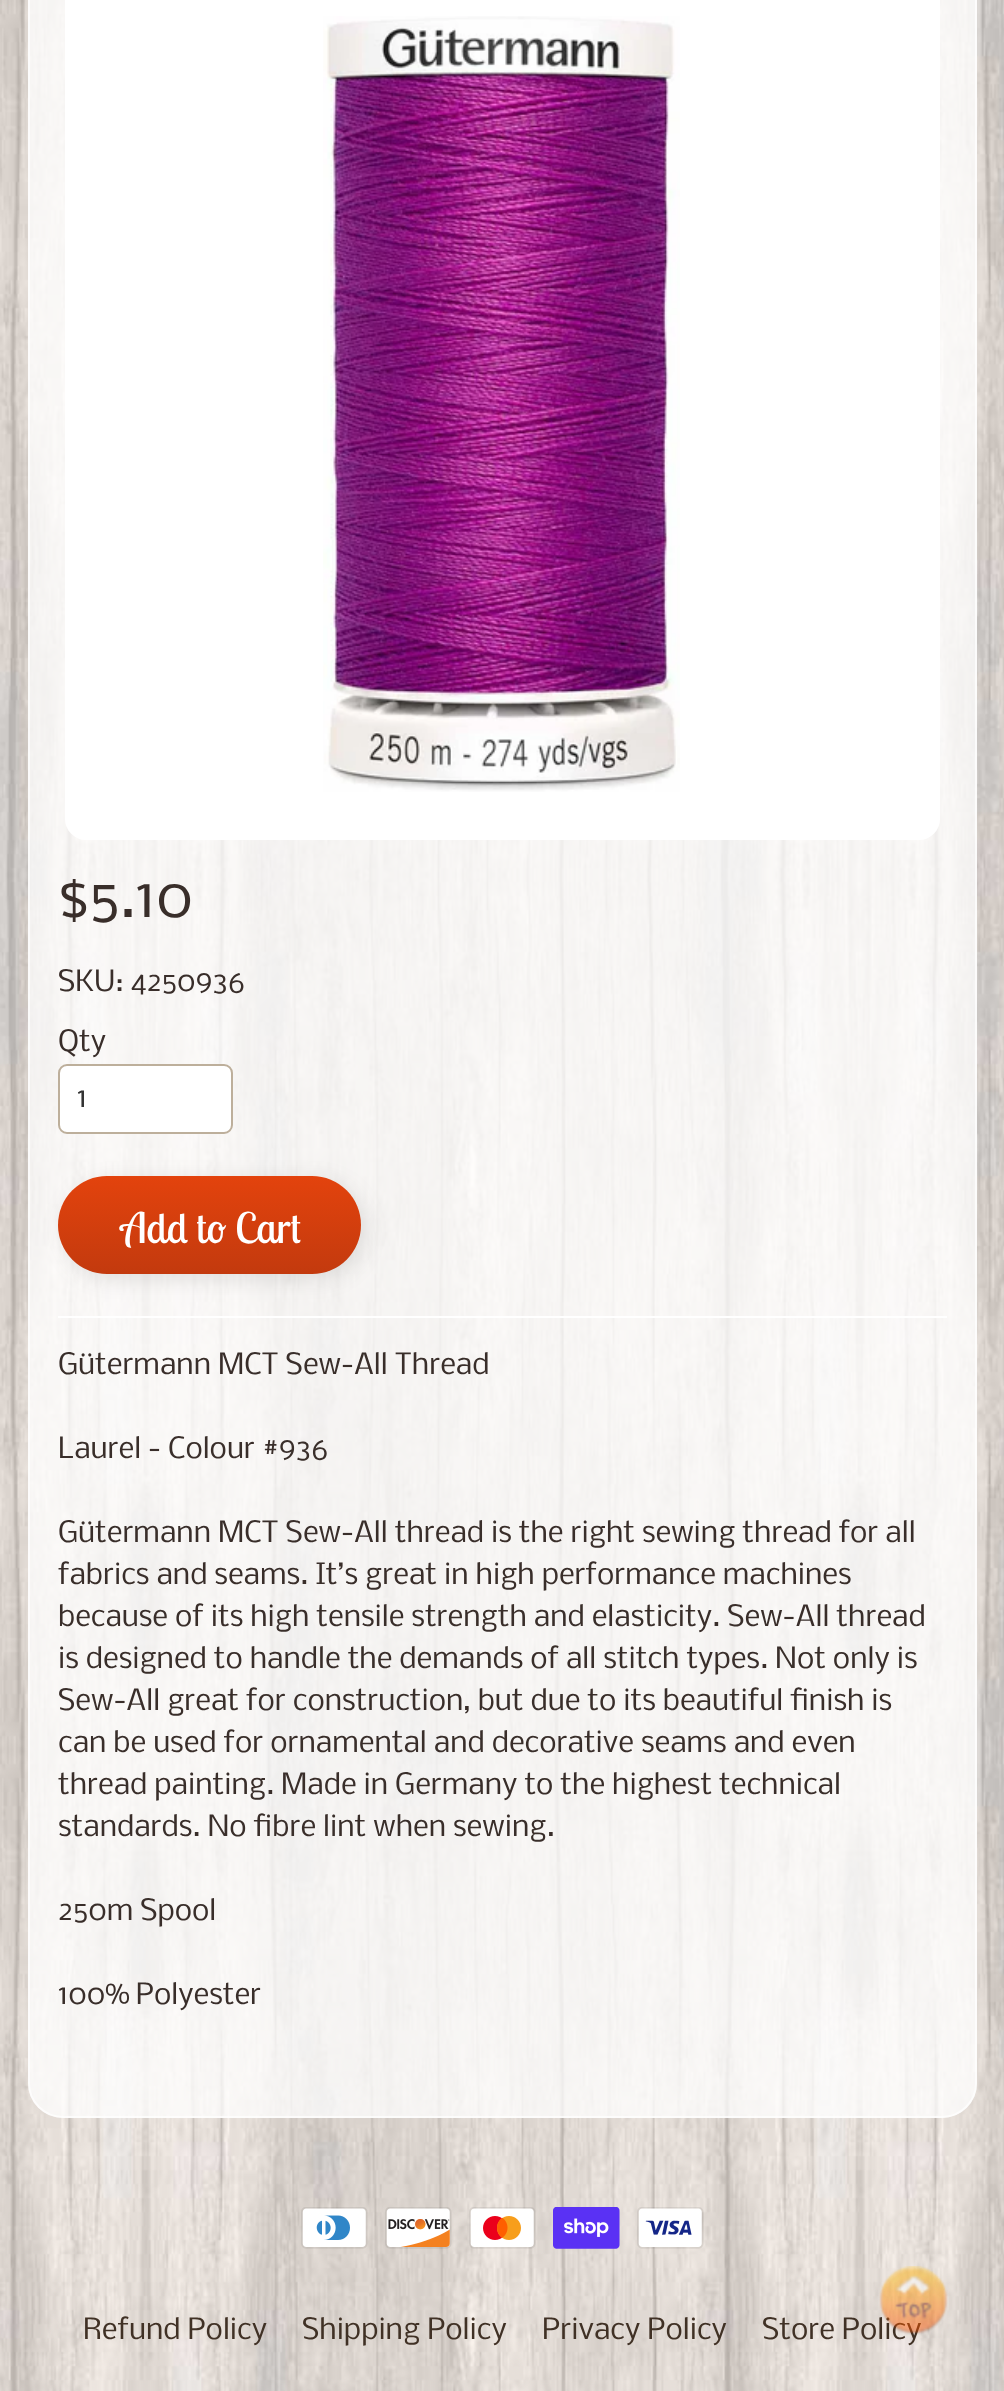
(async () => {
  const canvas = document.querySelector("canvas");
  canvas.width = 1004;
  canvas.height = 2391;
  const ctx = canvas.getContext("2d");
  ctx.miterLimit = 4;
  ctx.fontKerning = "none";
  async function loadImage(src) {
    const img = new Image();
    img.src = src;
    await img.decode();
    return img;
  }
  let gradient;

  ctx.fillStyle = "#ffffff";
  ctx.fillRect(0, 0, 1004, 2391);
  ctx.drawImage(await loadImage("img/1.png"), 0, 0, 1004, 2391);
  ctx.fillStyle = "rgba(255, 255, 255, 0.75)";
  ctx.beginPath();
  ctx.roundRect(28, -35, 949, 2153, 35);
  ctx.fill();
  ctx.beginPath();
  ctx.roundRect(29, -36, 947, 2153, 34);
  ctx.strokeStyle = "rgba(255, 255, 255, 0.7)";
  ctx.lineWidth = 2;
  ctx.stroke();
  ctx.fillStyle = "#ffffff";
  ctx.beginPath();
  ctx.roundRect(65, -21, 875, 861, 21);
  ctx.fill();
  ctx.drawImage(await loadImage("img/2.png"), 323, 16, 357, 776);
  ctx.beginPath();
  ctx.roundRect(59, 1065, 173, 68, 8);
  ctx.fill();
  ctx.strokeStyle = "#bdaf9b";
  ctx.stroke();
  ctx.fillStyle = "rgba(0, 0, 0, 0.1)";
  ctx.filter = "blur(10.5px)";
  ctx.beginPath();
  ctx.roundRect(63, 1181, 303, 98, 49);
  ctx.fill();
  ctx.filter = "none";
  gradient = ctx.createLinearGradient(209, 1176, 209, 1274);
  gradient.addColorStop(0, "#e3430d");
  gradient.addColorStop(1, "#c33a0e");
  ctx.fillStyle = gradient;
  ctx.beginPath();
  ctx.roundRect(58, 1176, 303, 98, 49);
  ctx.fill();
  ctx.fillStyle = "#ffffff";
  ctx.fillRect(58, 1316, 889, 2);
  ctx.drawImage(await loadImage("img/3.png"), 301, 2207, 67, 42);
  ctx.drawImage(await loadImage("img/4.png"), 385, 2207, 67, 42);
  ctx.drawImage(await loadImage("img/5.png"), 469, 2207, 67, 42);
  ctx.drawImage(await loadImage("img/6.png"), 553, 2207, 67, 42);
  ctx.drawImage(await loadImage("img/7.png"), 637, 2207, 67, 42);
  ctx.font = "56px Nobile";
  ctx.fillStyle = "#392e2a";
  ctx.fillText("$5.10", 58, 917);
  ctx.font = "28px Nobile";
  ctx.fillText("SKU: 4250936", 58, 991);
  ctx.fillText("Qty", 58, 1051);
  ctx.fillStyle = "#333333";
  ctx.fillText("1", 77, 1107);
  ctx.font = "42px Lobster Two";
  ctx.fillStyle = "#ffffff";
  ctx.fillText("Add to Cart", 121, 1243);
  ctx.font = "28px Nobile";
  ctx.fillStyle = "#392e2a";
  for (const [text, x, y] of [
    ["Gütermann MCT Sew-All Thread", 58, 1374],
    ["Laurel - Colour #936", 58, 1458],
    ["Gütermann MCT Sew-All thread is the right sewing thread for all", 58, 1542],
    ["fabrics and seams. It’s great in high performance machines", 58, 1584],
    ["because of its high tensile strength and elasticity. Sew-All thread", 58, 1626],
    ["is designed to handle the demands of all stitch types. Not only is", 58, 1668],
    ["Sew-All great for construction, but due to its beautiful finish is", 58, 1710],
    ["can be used for ornamental and decorative seams and even", 58, 1752],
    ["thread painting. Made in Germany to the highest technical", 58, 1794],
    ["standards. No fibre lint when sewing.", 58, 1836],
    ["250m Spool", 58, 1920],
    ["100% Polyester", 58, 2004],
  ]) {
    ctx.fillText(text, x, y);
  }
  ctx.fillStyle = "#403125";
  for (const [text, x, y] of [
    ["Refund Policy", 83, 2339],
    ["Shipping Policy", 302, 2339],
    ["Privacy Policy", 542, 2339],
    ["Store Policy", 762, 2339],
  ]) {
    ctx.fillText(text, x, y);
  }
  ctx.drawImage(await loadImage("img/8.png"), 879, 2266, 69, 69);
})();
